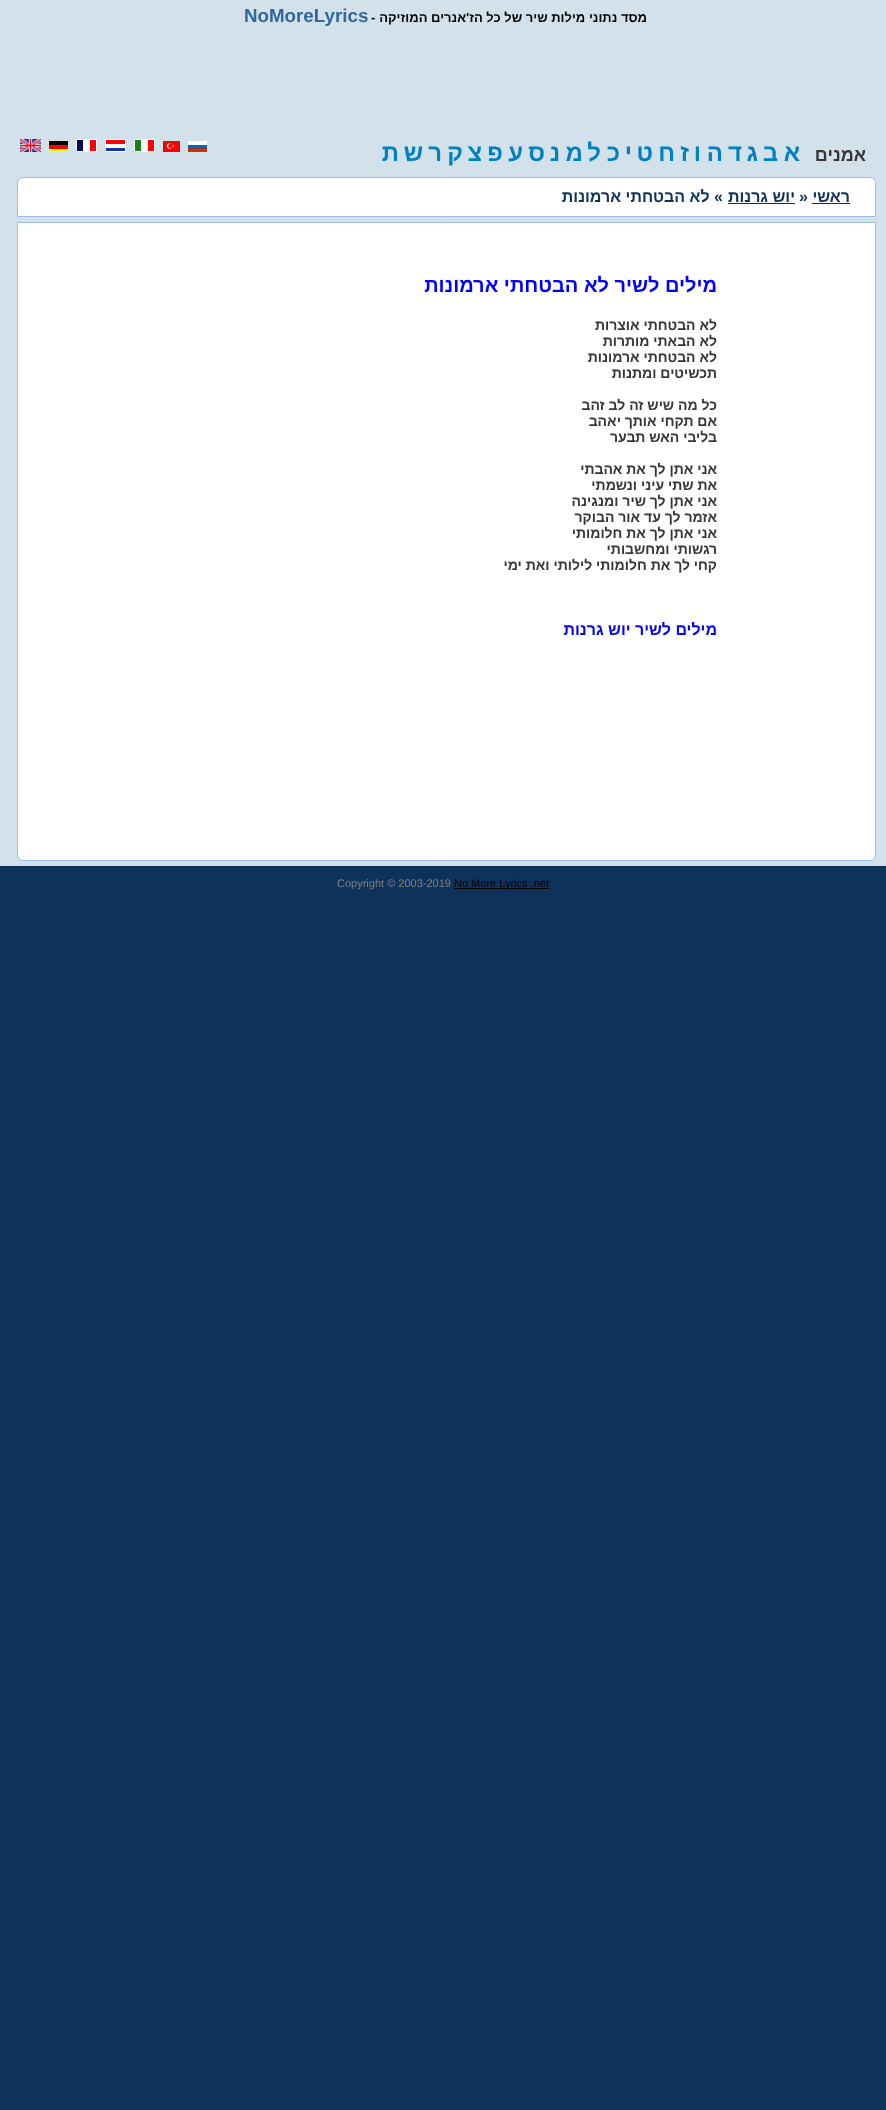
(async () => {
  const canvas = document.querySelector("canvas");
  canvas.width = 886;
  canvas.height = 2110;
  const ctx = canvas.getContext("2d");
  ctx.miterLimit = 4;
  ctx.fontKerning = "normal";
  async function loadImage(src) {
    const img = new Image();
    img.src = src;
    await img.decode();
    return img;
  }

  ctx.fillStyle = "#0e3259";
  ctx.fillRect(0, 0, 886, 2110);
  ctx.fillStyle = "#d3e2ea";
  ctx.fillRect(0, 0, 886, 866);
  ctx.drawImage(await loadImage("img/1.png"), 188, 141, 19, 11);
  ctx.drawImage(await loadImage("img/2.png"), 163, 141, 17, 11);
  ctx.drawImage(await loadImage("img/3.png"), 134, 139, 21, 13);
  ctx.drawImage(await loadImage("img/4.png"), 105, 139, 21, 13);
  ctx.drawImage(await loadImage("img/5.png"), 76, 139, 21, 13);
  ctx.drawImage(await loadImage("img/6.png"), 49, 141, 19, 11);
  ctx.drawImage(await loadImage("img/7.png"), 20, 139, 21, 13);
  ctx.fillStyle = "#ffffff";
  ctx.beginPath();
  ctx.roundRect(17.5, 177.5, 858, 39, [5.5, 5.5, 0, 0]);
  ctx.fill();
  ctx.strokeStyle = "#9cbee6";
  ctx.stroke();
  ctx.fillStyle = "#0e3259";
  ctx.fillRect(812, 203, 38, 1);
  ctx.fillRect(728, 203, 67, 1);
  ctx.fillStyle = "#ffffff";
  ctx.beginPath();
  ctx.roundRect(17.5, 222.5, 858, 638, [0, 0, 5.5, 5.5]);
  ctx.fill();
  ctx.stroke();
  ctx.fillStyle = "#000000";
  ctx.fillRect(454, 888, 95, 1);
  ctx.direction = "rtl";
  ctx.font = "bold 13px Liberation Sans";
  ctx.fillText("מסד נתוני מילות שיר של כל הז'אנרים המוזיקה", 647, 22);
  ctx.direction = "ltr";
  ctx.fillText("-", 371, 22);
  ctx.font = "bold 18.75px Liberation Sans";
  ctx.fillStyle = "#336699";
  ctx.fillText("NoMoreLyrics", 244, 22);
  ctx.direction = "rtl";
  ctx.font = "bold 18px Liberation Sans";
  ctx.fillStyle = "#363636";
  ctx.fillText("אמנים", 866, 161);
  ctx.font = "bold 24px Liberation Sans";
  ctx.fillStyle = "#0080c1";
  for (const [text, x, y] of [
    ["א", 800, 161],
    ["ב", 778, 161],
    ["ג", 758, 161],
    ["ד", 742, 161],
    ["ה", 723, 161],
    ["ו", 701, 161],
    ["ז", 689, 161],
    ["ח", 675, 161],
    ["ט", 653, 161],
    ["י", 632, 161],
    ["כ", 620, 161],
    ["ל", 601, 161],
    ["מ", 583, 161],
    ["נ", 560, 161],
    ["ס", 545, 161],
    ["ע", 523, 161],
    ["פ", 503, 161],
    ["צ", 482, 161],
    ["ק", 463, 161],
    ["ר", 442, 161],
    ["ש", 423, 161],
    ["ת", 399, 161],
  ]) {
    ctx.fillText(text, x, y);
  }
  ctx.font = "bold 16px Liberation Sans";
  ctx.fillStyle = "#0e3259";
  ctx.fillText("ראשי", 850, 202);
  ctx.direction = "ltr";
  ctx.fillText("»", 799, 202);
  ctx.direction = "rtl";
  ctx.fillText("יוש גרנות", 795, 202);
  ctx.fillText("» לא הבטחתי ארמונות", 723, 202);
  ctx.font = "bold 20px Liberation Sans";
  ctx.fillStyle = "#0000ff";
  ctx.fillText("מילים לשיר לא הבטחתי ארמונות", 717, 292);
  ctx.font = "bold 14px Liberation Sans";
  ctx.fillStyle = "#363636";
  for (const [text, x, y] of [
    ["לא הבטחתי אוצרות", 717, 330],
    ["לא הבאתי מותרות", 717, 346],
    ["לא הבטחתי ארמונות", 717, 362],
    ["תכשיטים ומתנות", 717, 378],
    ["כל מה שיש זה לב זהב", 717, 410],
    ["אם תקחי אותך יאהב", 717, 426],
    ["בליבי האש תבער", 717, 442],
    ["אני אתן לך את אהבתי", 717, 474],
    ["את שתי עיני ונשמתי", 717, 490],
    ["אני אתן לך שיר ומנגינה", 717, 506],
    ["אזמר לך עד אור הבוקר", 717, 522],
    ["אני אתן לך את חלומותי", 717, 538],
    ["רגשותי ומחשבותי", 717, 554],
    ["קחי לך את חלומותי לילותי ואת ימי", 717, 570],
  ]) {
    ctx.fillText(text, x, y);
  }
  ctx.font = "bold 16px Liberation Sans";
  ctx.fillStyle = "#0000ff";
  ctx.fillText("מילים לשיר יוש גרנות", 717, 635);
  ctx.direction = "ltr";
  ctx.font = "11px Liberation Sans";
  ctx.fillStyle = "#000000";
  ctx.fillText("No More Lyrics .net", 454, 887);
  ctx.fillStyle = "#808080";
  ctx.fillText("Copyright © 2003-2019", 337, 887);
})();
